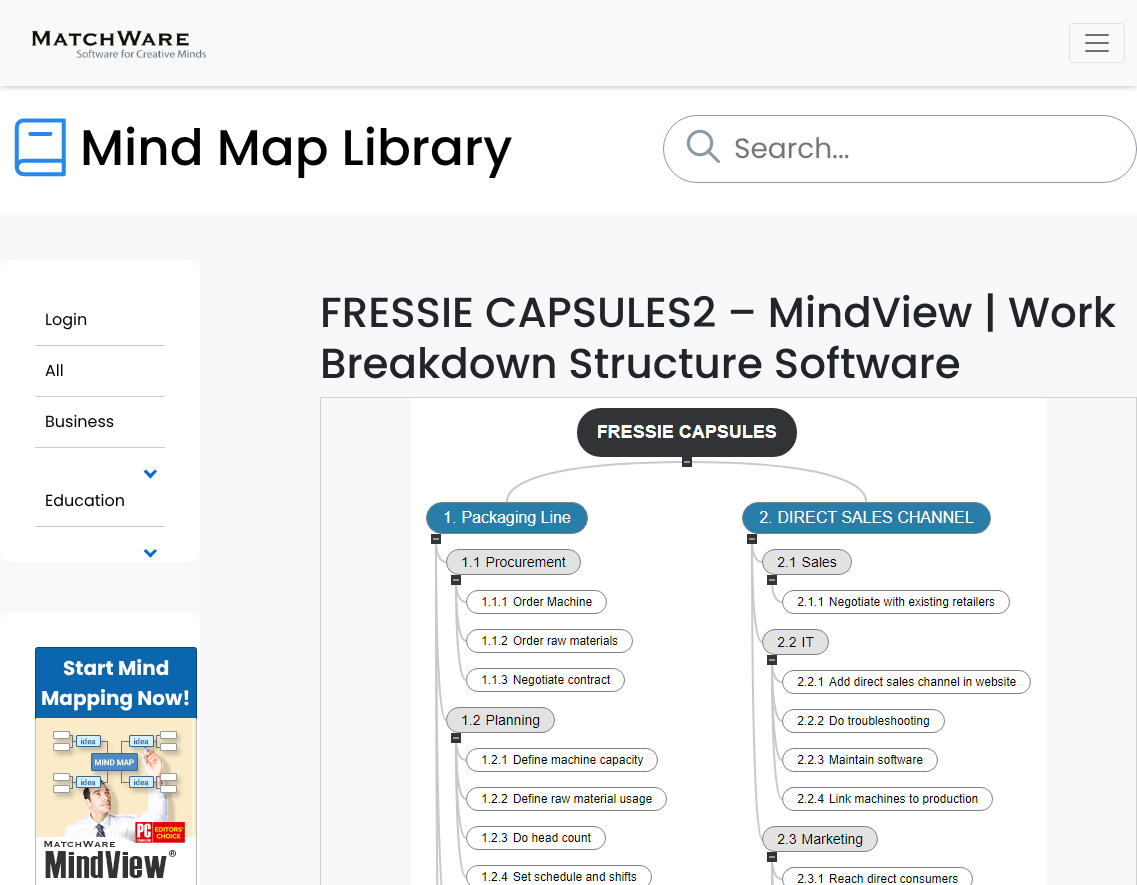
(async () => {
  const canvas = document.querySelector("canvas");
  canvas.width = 1137;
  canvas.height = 885;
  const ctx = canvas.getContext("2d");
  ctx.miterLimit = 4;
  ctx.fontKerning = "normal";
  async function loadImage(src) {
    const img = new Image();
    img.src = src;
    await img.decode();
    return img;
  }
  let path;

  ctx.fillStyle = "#f6f8f9";
  ctx.fillRect(0, 0, 1137, 885);
  ctx.fillStyle = "#ffffff";
  ctx.fillRect(0, 86, 1137, 129);
  ctx.fillStyle = "#afafaf";
  ctx.filter = "blur(3px)";
  ctx.beginPath();
  ctx.rect(1, 2, 1135, 84);
  ctx.fill();
  ctx.filter = "none";
  ctx.fillStyle = "#f8f9fa";
  ctx.fillRect(0, 0, 1137, 86);
  ctx.drawImage(await loadImage("img/1.png"), 32, 30, 174, 28);
  ctx.beginPath();
  ctx.roundRect(1069.5, 23.5, 55, 39, 3.5);
  ctx.strokeStyle = "#dfe0e1";
  ctx.stroke();
  ctx.drawImage(await loadImage("img/2.png"), 1085, 34, 24, 18);
  ctx.drawImage(await loadImage("img/3.png"), 14, 118, 52, 59);
  ctx.beginPath();
  ctx.roundRect(663.5, 115.5, 473, 67, 33.5);
  ctx.strokeStyle = "#8b98a8";
  ctx.stroke();
  ctx.drawImage(await loadImage("img/4.png"), 686, 129, 34, 34);
  ctx.fillStyle = "#f9f9f9";
  ctx.fillRect(0, 260, 200, 362);
  ctx.fillStyle = "#ffffff";
  ctx.beginPath();
  ctx.roundRect(0, 260, 200, 302, 10);
  ctx.fill();
  for (const [x, y, w, h, color] of [
    [35, 345, 130, 1, "#cccccc"],
    [35, 396, 130, 1, "#cccccc"],
    [35, 447, 130, 1, "#cccccc"],
  ]) {
    ctx.fillStyle = color;
    ctx.fillRect(x, y, w, h);
  }
  ctx.fillStyle = "#0b6cce";
  path = new Path2D("M155 469.5L157 471.5L150.5 478.5L148 476Z");
  ctx.fill(path);
  path = new Path2D("M146 469.5L152.5 476L150.5 478.5L143.5 471.5Z");
  ctx.fill(path);
  ctx.fillStyle = "#cccccc";
  ctx.fillRect(35, 526, 130, 1);
  ctx.fillStyle = "#0b6cce";
  path = new Path2D("M155 549L157 551L150.5 557.5L148 555.5Z");
  ctx.fill(path);
  path = new Path2D("M146 549L152.5 555.5L150.5 557.5L143.5 551Z");
  ctx.fill(path);
  ctx.fillStyle = "#ffffff";
  ctx.beginPath();
  ctx.roundRect(0, 612, 200, 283, 10);
  ctx.fill();
  ctx.beginPath();
  ctx.roundRect(35.5, 647.5, 161, 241, 2.5);
  ctx.strokeStyle = "#bbbbbb";
  ctx.stroke();
  ctx.fillStyle = "#0b66ad";
  ctx.beginPath();
  ctx.roundRect(35.5, 647.5, 161, 71, [2.5, 2.5, 0, 0]);
  ctx.fill();
  ctx.strokeStyle = "#00477f";
  ctx.stroke();
  ctx.drawImage(await loadImage("img/5.png"), 36, 718, 160, 160);
  ctx.strokeStyle = "#d0d0d0";
  ctx.strokeRect(320.5, 397.5, 816, 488);
  ctx.drawImage(await loadImage("img/6.png"), 411, 398, 635, 487);
  ctx.font = "500 50px Poppins";
  ctx.fillStyle = "#000000";
  ctx.fillText("Mind Map Library", 80, 165);
  ctx.font = "28px Poppins";
  ctx.fillStyle = "#767676";
  ctx.fillText("Search...", 734, 158);
  ctx.font = "16px Poppins";
  ctx.fillStyle = "#000000";
  for (const [text, x, y] of [
    ["Login", 45, 325],
    ["All", 45, 376],
    ["Business", 45, 427],
    ["Education", 45, 506],
  ]) {
    ctx.fillText(text, x, y);
  }
  ctx.font = "bold 20px Poppins";
  ctx.fillStyle = "#ffffff";
  ctx.fillText("Start Mind", 63, 675);
  ctx.fillText("Mapping Now!", 41, 705);
  ctx.font = "500 42px Poppins";
  ctx.fillStyle = "#212529";
  ctx.fillText("FRESSIE CAPSULES2 – MindView | Work", 320, 327);
  ctx.fillText("Breakdown Structure Software", 320, 378);
})();
